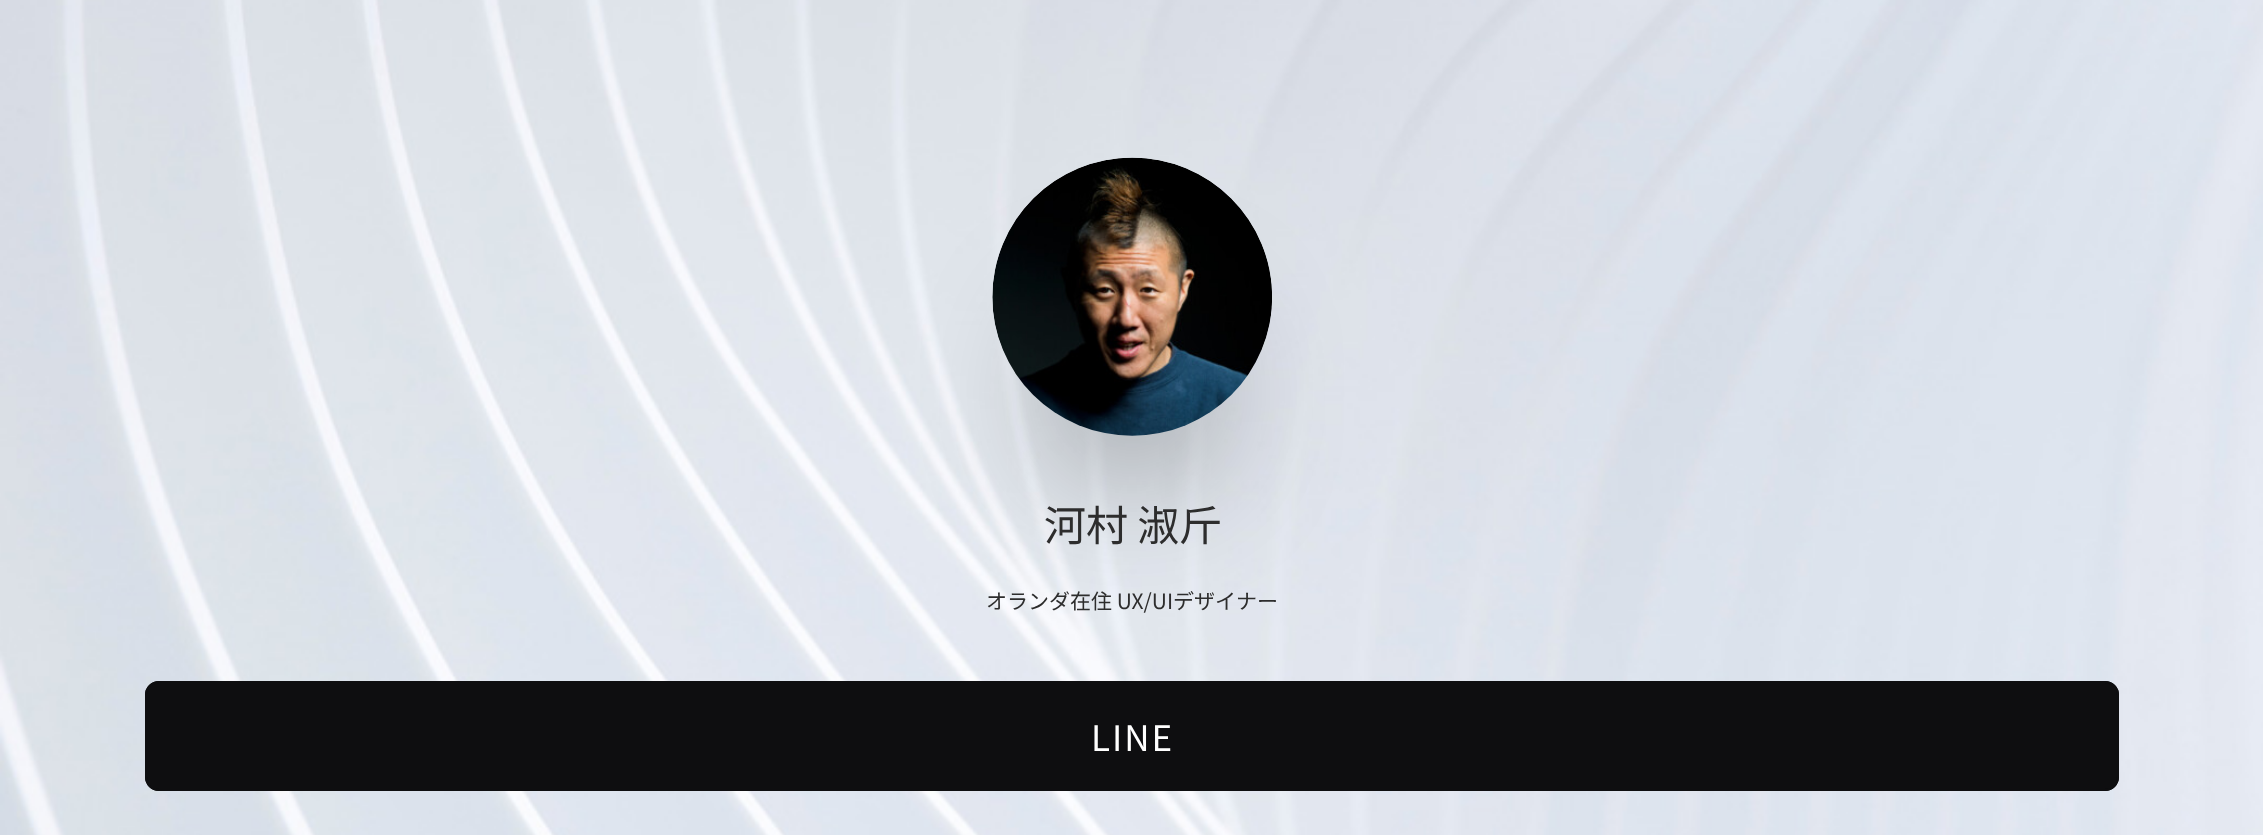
(async () => {
  const canvas = document.querySelector("canvas");
  canvas.width = 2263;
  canvas.height = 835;
  const ctx = canvas.getContext("2d");
  ctx.miterLimit = 4;
  ctx.fontKerning = "normal";
  async function loadImage(src) {
    const img = new Image();
    img.src = src;
    await img.decode();
    return img;
  }

  ctx.fillStyle = "#ffffff";
  ctx.fillRect(0, 0, 2263, 835);
  ctx.drawImage(await loadImage("img/1.png"), 0, 0, 2263, 835);
  ctx.fillStyle = "rgba(0, 0, 0, 0.45)";
  ctx.filter = "blur(70px)";
  ctx.beginPath();
  ctx.roundRect(1062, 324, 140, 138, 69);
  ctx.fill();
  ctx.filter = "none";
  ctx.drawImage(await loadImage("img/2.png"), 992, 157, 280, 279);
  ctx.fillStyle = "#0e0e10";
  ctx.beginPath();
  ctx.roundRect(146, 682, 1972, 108, 13);
  ctx.fill();
  ctx.strokeStyle = "#0e0e10";
  ctx.lineWidth = 2;
  ctx.stroke();
  ctx.beginPath();
  ctx.roundRect(146, 682, 1972, 108, 13);
  ctx.stroke();
  ctx.font = "42px Noto Sans JP";
  ctx.fillStyle = "#2d2d2d";
  ctx.fillText("河村 淑斤", 1044, 541);
  ctx.font = "21px Noto Sans JP";
  ctx.fillText("オランダ在住 UX/UIデザイナー", 986, 609);
  ctx.letterSpacing = "2px";
  ctx.font = "35px Noto Sans JP";
  ctx.fillStyle = "#ffffff";
  ctx.fillText("LINE", 1091, 751);
})();
